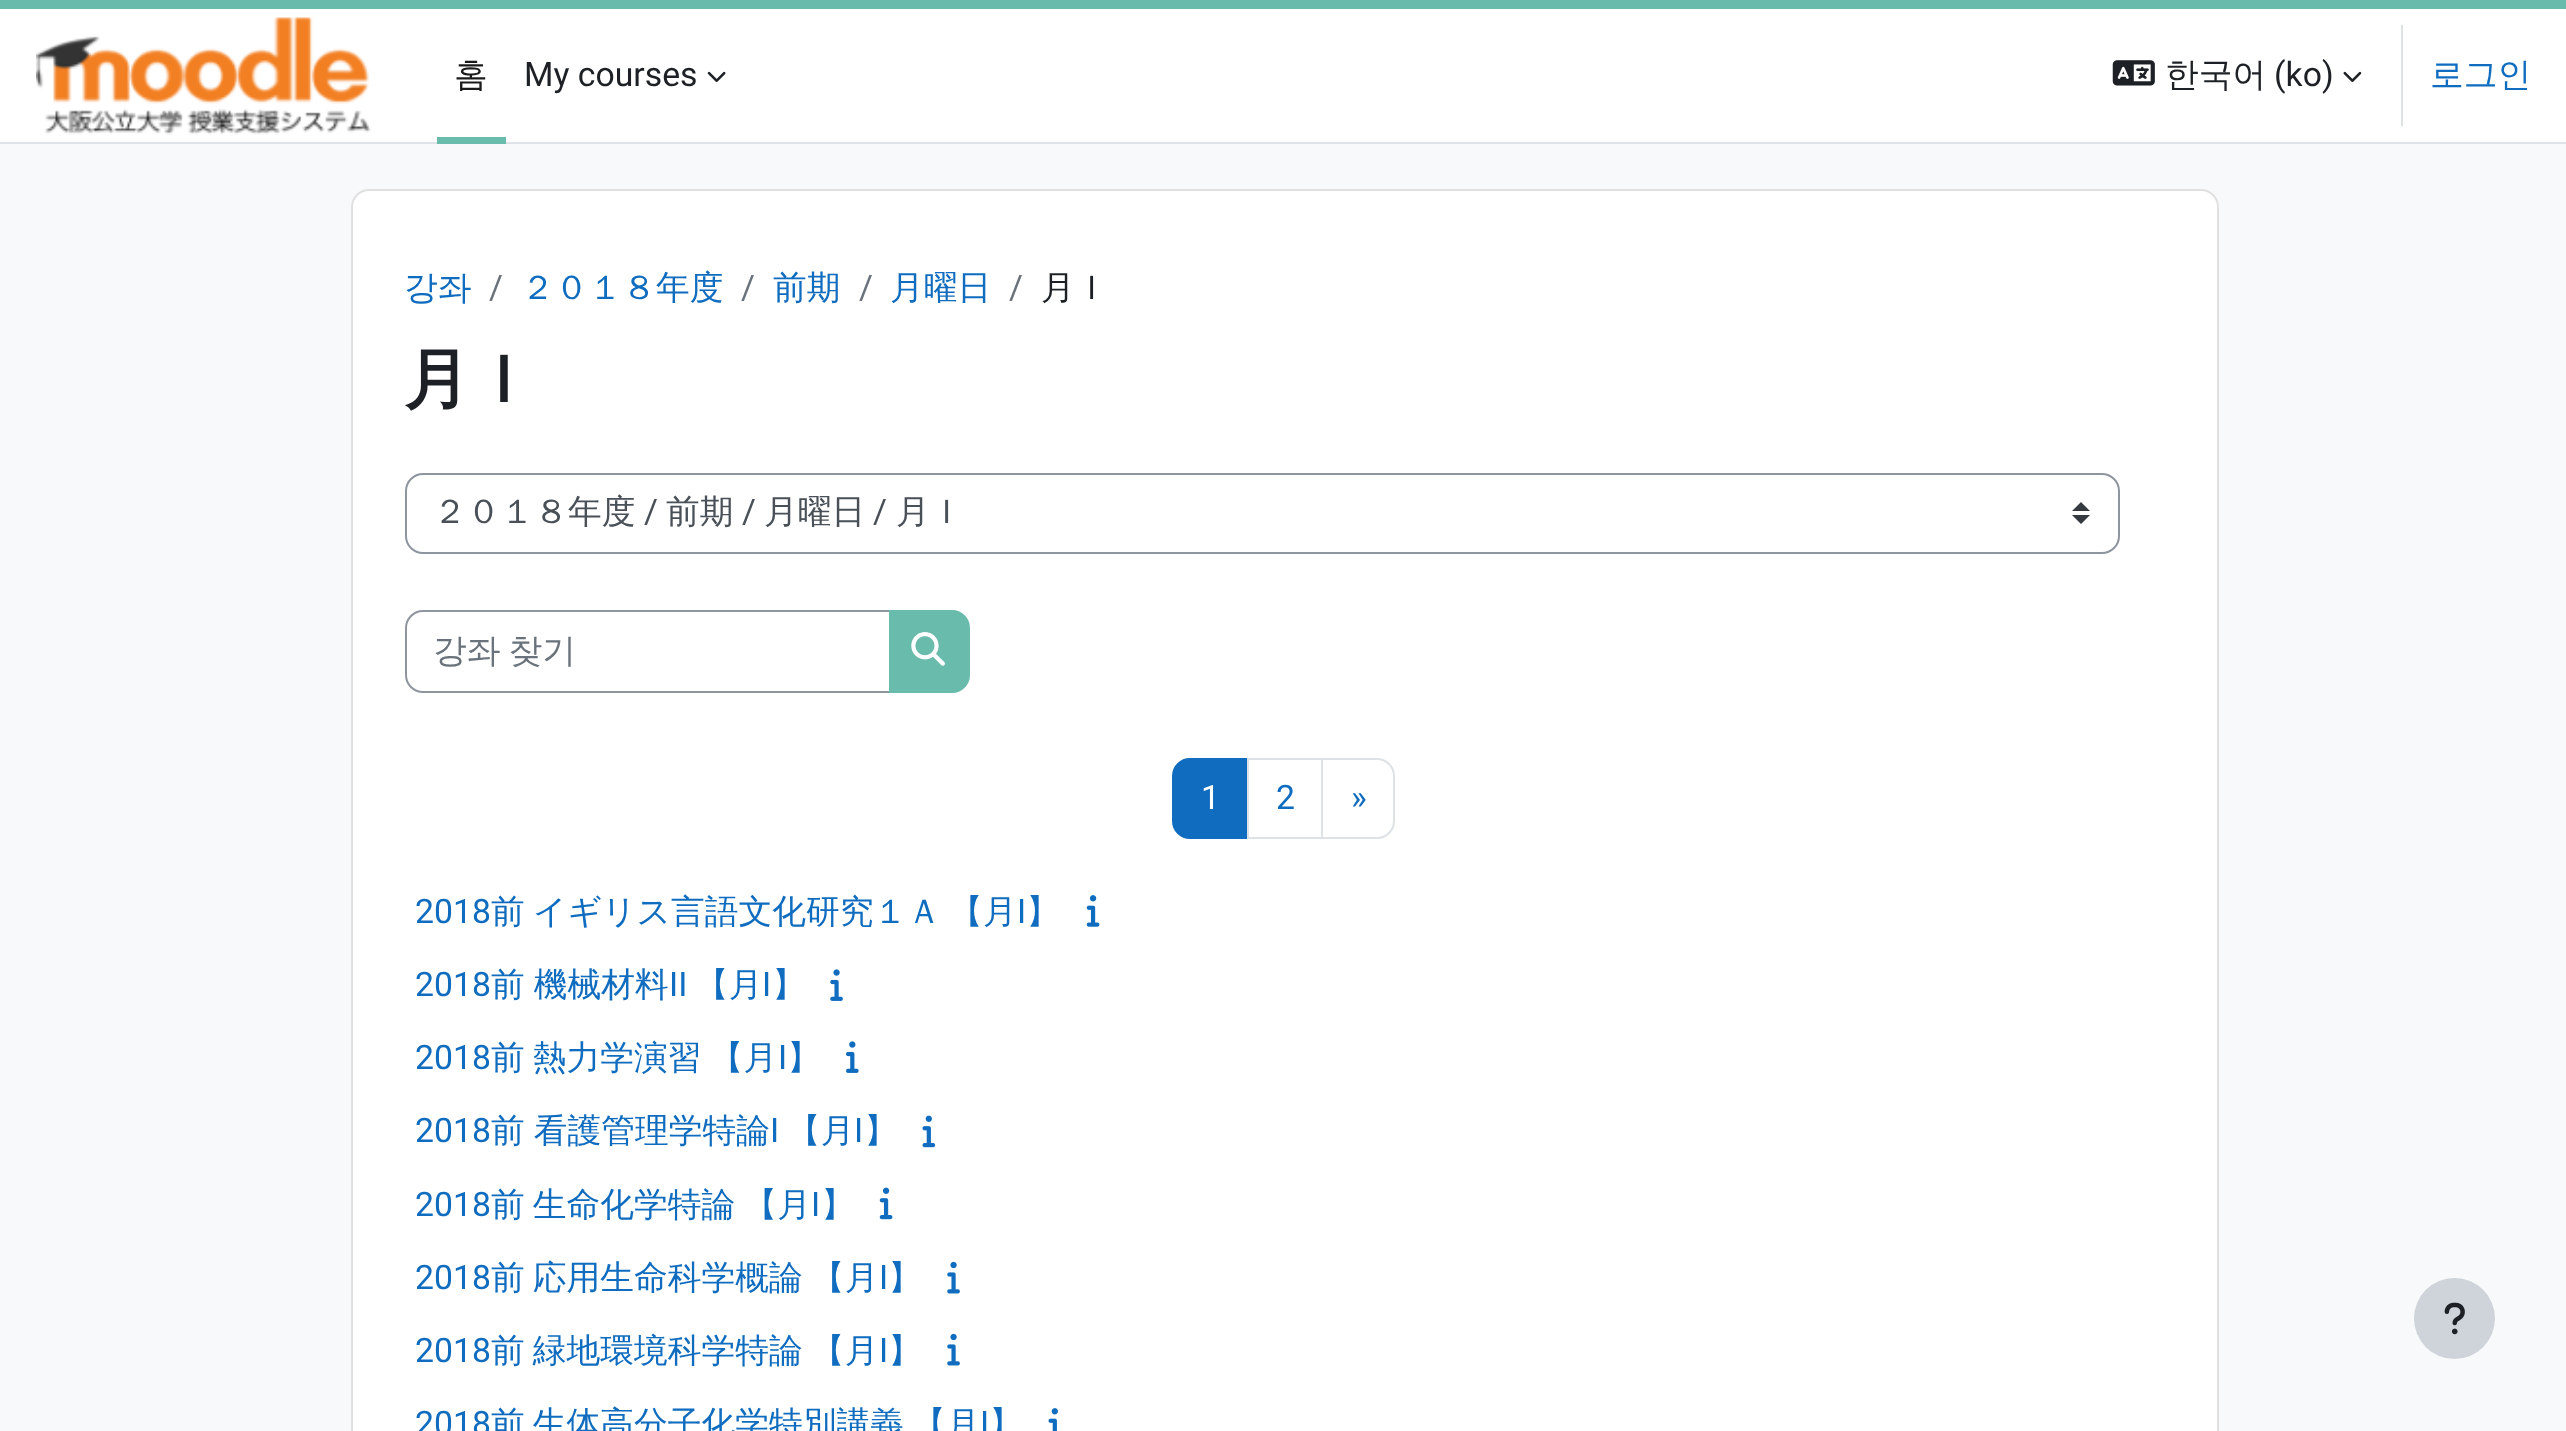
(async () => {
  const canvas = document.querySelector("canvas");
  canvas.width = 2566;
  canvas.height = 1431;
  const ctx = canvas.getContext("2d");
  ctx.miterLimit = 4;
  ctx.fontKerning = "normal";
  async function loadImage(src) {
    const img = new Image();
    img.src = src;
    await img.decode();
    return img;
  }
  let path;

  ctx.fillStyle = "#f8f9fa";
  ctx.fillRect(0, 0, 2566, 1431);
  for (const [x, y, w, h, color] of [
    [0, 9, 2566, 133, "#ffffff"],
    [0, 0, 2566, 9, "#69bbab"],
    [0, 142, 2566, 2, "#dfe2e6"],
  ]) {
    ctx.fillStyle = color;
    ctx.fillRect(x, y, w, h);
  }
  ctx.drawImage(await loadImage("img/1.png"), 36, 17, 335, 118);
  ctx.fillStyle = "#69bbab";
  ctx.fillRect(437, 137, 69, 7);
  ctx.drawImage(await loadImage("img/2.png"), 707, 71, 19, 11);
  ctx.drawImage(await loadImage("img/3.png"), 2112, 60, 43, 26);
  ctx.drawImage(await loadImage("img/4.png"), 2343, 71, 19, 11);
  ctx.fillStyle = "#dee2e6";
  ctx.fillRect(2401, 25, 2, 101);
  ctx.fillStyle = "#ffffff";
  ctx.beginPath();
  ctx.roundRect(351, 189, 1868, 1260, 18);
  ctx.fill();
  ctx.beginPath();
  ctx.roundRect(352, 190, 1866, 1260, 17);
  ctx.strokeStyle = "rgba(0, 0, 0, 0.12)";
  ctx.lineWidth = 2;
  ctx.stroke();
  ctx.fillStyle = "#343a40";
  path = new Path2D("M2081 502L2072 511H2090ZM2081 524L2072 515H2090Z");
  ctx.fill(path);
  ctx.beginPath();
  ctx.roundRect(406, 474, 1713, 79, 17);
  ctx.strokeStyle = "#8f959e";
  ctx.stroke();
  ctx.beginPath();
  ctx.roundRect(406, 611, 484, 81, [17, 0, 0, 17]);
  ctx.stroke();
  ctx.fillStyle = "#69bbab";
  ctx.beginPath();
  ctx.roundRect(890, 611, 79, 81, [0, 17, 17, 0]);
  ctx.fill();
  ctx.strokeStyle = "#69bbab";
  ctx.stroke();
  ctx.drawImage(await loadImage("img/5.png"), 911, 632, 34, 34);
  ctx.fillStyle = "#0f6cbf";
  ctx.beginPath();
  ctx.roundRect(1173, 759, 75, 79, [17, 0, 0, 17]);
  ctx.fill();
  ctx.strokeStyle = "#0f6cbf";
  ctx.stroke();
  ctx.strokeStyle = "#dee2e6";
  ctx.strokeRect(1248, 759, 74, 79);
  ctx.fillStyle = "#ffffff";
  ctx.beginPath();
  ctx.roundRect(1322, 759, 72, 79, [0, 17, 17, 0]);
  ctx.fill();
  ctx.stroke();
  ctx.drawImage(await loadImage("img/6.png"), 1086, 895, 14, 32);
  ctx.drawImage(await loadImage("img/7.png"), 830, 969, 13, 32);
  ctx.drawImage(await loadImage("img/8.png"), 846, 1041, 13, 32);
  ctx.drawImage(await loadImage("img/9.png"), 922, 1115, 14, 33);
  ctx.drawImage(await loadImage("img/10.png"), 879, 1187, 14, 33);
  ctx.drawImage(await loadImage("img/11.png"), 947, 1261, 13, 33);
  ctx.drawImage(await loadImage("img/11.png"), 947, 1333, 13, 33);
  ctx.drawImage(await loadImage("img/12.png"), 1048, 1408, 10, 23);
  ctx.fillStyle = "#ced4da";
  ctx.beginPath();
  ctx.arc(2454.5, 1318.5, 40.5, 0, Math.PI * 2);
  ctx.fill();
  ctx.drawImage(await loadImage("img/13.png"), 2444, 1302, 21, 33);
  ctx.font = "500 33.75px WenQuanYi Zen Hei";
  ctx.fillStyle = "#1a1a1a";
  ctx.fillText("홈", 454, 86);
  ctx.font = "33.75px Roboto";
  ctx.fillStyle = "#1d2125";
  ctx.fillText("My courses", 524, 86);
  ctx.font = "500 33.75px WenQuanYi Zen Hei";
  ctx.fillText("한국어", 2165, 86);
  ctx.font = "33.75px Roboto";
  ctx.fillText("(ko)", 2274, 86);
  ctx.font = "500 33.75px WenQuanYi Zen Hei";
  ctx.fillStyle = "#0f6cbf";
  ctx.fillText("로그인", 2430, 86);
  ctx.fillText("강좌", 404, 299);
  ctx.font = "33.75px Roboto";
  ctx.fillStyle = "#6a737b";
  ctx.fillText("/", 489, 299);
  ctx.font = "500 33.75px WenQuanYi Zen Hei";
  ctx.fillStyle = "#0f6cbf";
  ctx.fillText("２０１８年度", 521, 299);
  ctx.font = "33.75px Roboto";
  ctx.fillStyle = "#6a737b";
  ctx.fillText("/", 741, 299);
  ctx.font = "500 33.75px WenQuanYi Zen Hei";
  ctx.fillStyle = "#0f6cbf";
  ctx.fillText("前期", 773, 299);
  ctx.font = "33.75px Roboto";
  ctx.fillStyle = "#6a737b";
  ctx.fillText("/", 859, 299);
  ctx.font = "500 33.75px WenQuanYi Zen Hei";
  ctx.fillStyle = "#0f6cbf";
  ctx.fillText("月曜日", 890, 299);
  ctx.font = "33.75px Roboto";
  ctx.fillStyle = "#6a737b";
  ctx.fillText("/", 1009, 299);
  ctx.font = "500 33.75px WenQuanYi Zen Hei";
  ctx.fillStyle = "#1d2125";
  ctx.fillText("月Ｉ", 1041, 299);
  ctx.font = "bold 66px WenQuanYi Zen Hei";
  ctx.fillText("月Ｉ", 404, 402);
  ctx.font = "500 33.75px WenQuanYi Zen Hei";
  ctx.fillStyle = "#495057";
  ctx.fillText("２０１８年度", 433, 523);
  ctx.font = "33.75px Roboto";
  ctx.fillText("/", 644, 523);
  ctx.font = "500 33.75px WenQuanYi Zen Hei";
  ctx.fillText("前期", 666, 523);
  ctx.font = "33.75px Roboto";
  ctx.fillText("/", 742, 523);
  ctx.font = "500 33.75px WenQuanYi Zen Hei";
  ctx.fillText("月曜日", 764, 523);
  ctx.font = "33.75px Roboto";
  ctx.fillText("/", 873, 523);
  ctx.font = "500 33.75px WenQuanYi Zen Hei";
  ctx.fillText("月Ｉ", 896, 523);
  ctx.wordSpacing = "-2px";
  ctx.fillStyle = "#6a737b";
  ctx.fillText("강좌 찾기", 433, 662);
  ctx.wordSpacing = "0px";
  ctx.font = "33.75px Roboto";
  ctx.fillStyle = "#ffffff";
  ctx.fillText("1", 1201, 809);
  ctx.fillStyle = "#0f6cbf";
  for (const [text, x, y] of [
    ["2", 1276, 809],
    ["»", 1351, 809],
    ["2018", 415, 923],
  ]) {
    ctx.fillText(text, x, y);
  }
  ctx.wordSpacing = "-2px";
  ctx.font = "500 33.75px WenQuanYi Zen Hei";
  ctx.fillText("前 イギリス言語文化研究１Ａ 【月", 491, 923);
  ctx.wordSpacing = "0px";
  ctx.font = "33.75px Roboto";
  ctx.fillText("I", 1017, 923);
  ctx.font = "500 33.75px WenQuanYi Zen Hei";
  ctx.fillText("】", 1026, 923);
  ctx.font = "33.75px Roboto";
  ctx.fillText("2018", 415, 996);
  ctx.wordSpacing = "-1px";
  ctx.font = "500 33.75px WenQuanYi Zen Hei";
  ctx.fillText("前 機械材料", 491, 996);
  ctx.wordSpacing = "0px";
  ctx.font = "33.75px Roboto";
  ctx.fillText("II", 669, 996);
  ctx.font = "500 33.75px WenQuanYi Zen Hei";
  ctx.fillText("【月", 695, 996);
  ctx.font = "33.75px Roboto";
  ctx.fillText("I", 762, 996);
  ctx.font = "500 33.75px WenQuanYi Zen Hei";
  ctx.fillText("】", 772, 996);
  ctx.font = "33.75px Roboto";
  ctx.fillText("2018", 415, 1069);
  ctx.wordSpacing = "-2px";
  ctx.font = "500 33.75px WenQuanYi Zen Hei";
  ctx.fillText("前 熱力学演習 【月", 491, 1069);
  ctx.wordSpacing = "0px";
  ctx.font = "33.75px Roboto";
  ctx.fillText("I", 778, 1069);
  ctx.font = "500 33.75px WenQuanYi Zen Hei";
  ctx.fillText("】", 787, 1069);
  ctx.font = "33.75px Roboto";
  ctx.fillText("2018", 415, 1142);
  ctx.wordSpacing = "-1px";
  ctx.font = "500 33.75px WenQuanYi Zen Hei";
  ctx.fillText("前 看護管理学特論", 491, 1142);
  ctx.wordSpacing = "0px";
  ctx.font = "33.75px Roboto";
  ctx.fillText("I", 770, 1142);
  ctx.font = "500 33.75px WenQuanYi Zen Hei";
  ctx.fillText("【月", 787, 1142);
  ctx.font = "33.75px Roboto";
  ctx.fillText("I", 854, 1142);
  ctx.font = "500 33.75px WenQuanYi Zen Hei";
  ctx.fillText("】", 864, 1142);
  ctx.font = "33.75px Roboto";
  ctx.fillText("2018", 415, 1216);
  ctx.wordSpacing = "-2px";
  ctx.font = "500 33.75px WenQuanYi Zen Hei";
  ctx.fillText("前 生命化学特論 【月", 491, 1216);
  ctx.wordSpacing = "0px";
  ctx.font = "33.75px Roboto";
  ctx.fillText("I", 811, 1216);
  ctx.font = "500 33.75px WenQuanYi Zen Hei";
  ctx.fillText("】", 821, 1216);
  ctx.font = "33.75px Roboto";
  ctx.fillText("2018", 415, 1289);
  ctx.wordSpacing = "-2px";
  ctx.font = "500 33.75px WenQuanYi Zen Hei";
  ctx.fillText("前 応用生命科学概論 【月", 491, 1289);
  ctx.wordSpacing = "0px";
  ctx.font = "33.75px Roboto";
  ctx.fillText("I", 879, 1289);
  ctx.font = "500 33.75px WenQuanYi Zen Hei";
  ctx.fillText("】", 888, 1289);
  ctx.font = "33.75px Roboto";
  ctx.fillText("2018", 415, 1362);
  ctx.wordSpacing = "-2px";
  ctx.font = "500 33.75px WenQuanYi Zen Hei";
  ctx.fillText("前 緑地環境科学特論 【月", 491, 1362);
  ctx.wordSpacing = "0px";
  ctx.font = "33.75px Roboto";
  ctx.fillText("I", 879, 1362);
  ctx.font = "500 33.75px WenQuanYi Zen Hei";
  ctx.fillText("】", 888, 1362);
  ctx.font = "33.75px Roboto";
  ctx.fillText("2018", 415, 1435);
  ctx.wordSpacing = "-2px";
  ctx.font = "500 33.75px WenQuanYi Zen Hei";
  ctx.fillText("前 生体高分子化学特別講義 【月", 491, 1435);
  ctx.wordSpacing = "0px";
  ctx.font = "33.75px Roboto";
  ctx.fillText("I", 980, 1435);
  ctx.font = "500 33.75px WenQuanYi Zen Hei";
  ctx.fillText("】", 989, 1435);
})();
